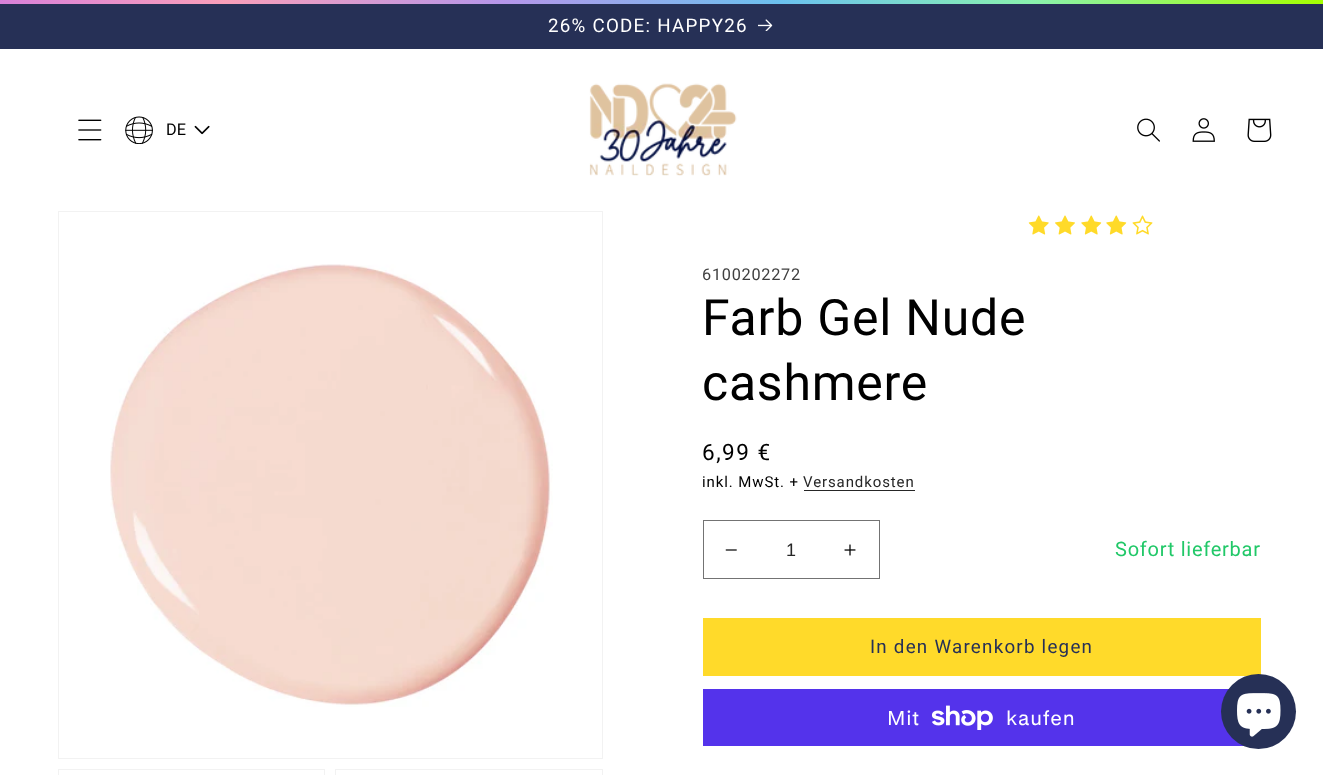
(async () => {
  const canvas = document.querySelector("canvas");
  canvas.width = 1323;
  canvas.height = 775;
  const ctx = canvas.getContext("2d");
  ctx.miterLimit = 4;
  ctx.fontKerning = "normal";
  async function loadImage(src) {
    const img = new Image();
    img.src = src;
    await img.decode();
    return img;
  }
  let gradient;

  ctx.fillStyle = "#ffffff";
  ctx.fillRect(0, 0, 1323, 775);
  gradient = ctx.createLinearGradient(0, 1.9, 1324, 1.9);
  gradient.addColorStop(0, "#d881da");
  gradient.addColorStop(0.17, "#f99fb9");
  gradient.addColorStop(0.38, "#b596ea");
  gradient.addColorStop(0.59, "#6bc1ef");
  gradient.addColorStop(0.78, "#8af2ae");
  gradient.addColorStop(1, "#a5ff00");
  ctx.fillStyle = gradient;
  ctx.fillRect(0, 0, 1323, 4);
  ctx.fillStyle = "#263056";
  ctx.fillRect(0, 4, 1323, 45);
  ctx.drawImage(await loadImage("img/1.png"), 758, 19, 15, 12);
  ctx.drawImage(await loadImage("img/2.png"), 78, 119, 24, 22);
  ctx.drawImage(await loadImage("img/3.png"), 125, 116, 28, 28);
  ctx.drawImage(await loadImage("img/4.png"), 194, 125, 16, 10);
  ctx.drawImage(await loadImage("img/5.png"), 589, 83, 148, 93);
  ctx.drawImage(await loadImage("img/6.png"), 1137, 118, 23, 24);
  ctx.drawImage(await loadImage("img/7.png"), 1192, 118, 23, 24);
  ctx.drawImage(await loadImage("img/8.png"), 1247, 118, 25, 24);
  ctx.strokeStyle = "#f2f2f2";
  ctx.strokeRect(58.5, 211.5, 544, 547);
  ctx.drawImage(await loadImage("img/9.png"), 110, 264, 443, 443);
  ctx.strokeRect(58.5, 769.5, 266, 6);
  ctx.strokeRect(335.5, 769.5, 267, 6);
  ctx.drawImage(await loadImage("img/10.png"), 1028, 215, 21, 20);
  ctx.drawImage(await loadImage("img/11.png"), 1055, 215, 20, 20);
  ctx.drawImage(await loadImage("img/12.png"), 1081, 215, 21, 20);
  ctx.drawImage(await loadImage("img/12.png"), 1106, 215, 21, 20);
  ctx.drawImage(await loadImage("img/13.png"), 1132, 215, 21, 20);
  ctx.fillStyle = "#262626";
  ctx.fillRect(804, 490, 111, 1);
  ctx.drawImage(await loadImage("img/14.png"), 725, 549, 12, 2);
  ctx.drawImage(await loadImage("img/15.png"), 844, 544, 12, 12);
  ctx.strokeStyle = "#737373";
  ctx.strokeRect(703.5, 520.5, 176, 58);
  ctx.fillStyle = "#ffda2a";
  ctx.fillRect(703, 618, 558, 58);
  ctx.fillStyle = "#5433eb";
  ctx.fillRect(703, 689, 541, 57);
  ctx.drawImage(await loadImage("img/16.png"), 931, 705, 62, 25);
  ctx.fillStyle = "#263056";
  ctx.beginPath();
  ctx.arc(1258.5, 711.5, 37.5, 0, Math.PI * 2);
  ctx.fill();
  ctx.drawImage(await loadImage("img/17.png"), 1237, 693, 44, 44);
  ctx.letterSpacing = "1.25px";
  ctx.font = "18.75px Roboto";
  ctx.fillStyle = "#ffffff";
  ctx.fillText("26% CODE: HAPPY26", 548, 32);
  ctx.letterSpacing = "0px";
  ctx.font = "16.25px Roboto";
  ctx.fillStyle = "#000000";
  ctx.fillText("DE", 166, 135);
  ctx.letterSpacing = "0.75px";
  ctx.fillStyle = "#404040";
  ctx.fillText("6100202272", 702, 280);
  ctx.font = "50px Roboto";
  ctx.fillStyle = "#000000";
  ctx.fillText("Farb Gel Nude", 702, 335);
  ctx.fillText("cashmere", 702, 400);
  ctx.letterSpacing = "1.5px";
  ctx.font = "22.5px Roboto";
  ctx.fillText("6,99 €", 702, 460);
  ctx.letterSpacing = "0.9px";
  ctx.font = "15px Roboto";
  ctx.fillText("inkl. MwSt. +", 702, 487);
  ctx.fillStyle = "#262626";
  ctx.fillText("Versandkosten", 803, 487);
  ctx.letterSpacing = "0px";
  ctx.font = "18px Liberation Sans";
  ctx.fillText("1", 786, 556);
  ctx.letterSpacing = "0.75px";
  ctx.font = "20px Roboto";
  ctx.fillStyle = "#21c868";
  ctx.fillText("Sofort lieferbar", 1115, 556);
  ctx.letterSpacing = "1.25px";
  ctx.font = "18.75px Roboto";
  ctx.fillStyle = "#263056";
  ctx.fillText("In den Warenkorb legen", 870, 653);
  ctx.letterSpacing = "0.75px";
  ctx.font = "20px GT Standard";
  ctx.fillStyle = "#ffffff";
  ctx.fillText("Mit", 887, 725);
  ctx.fillText("kaufen", 1006, 725);
})();
